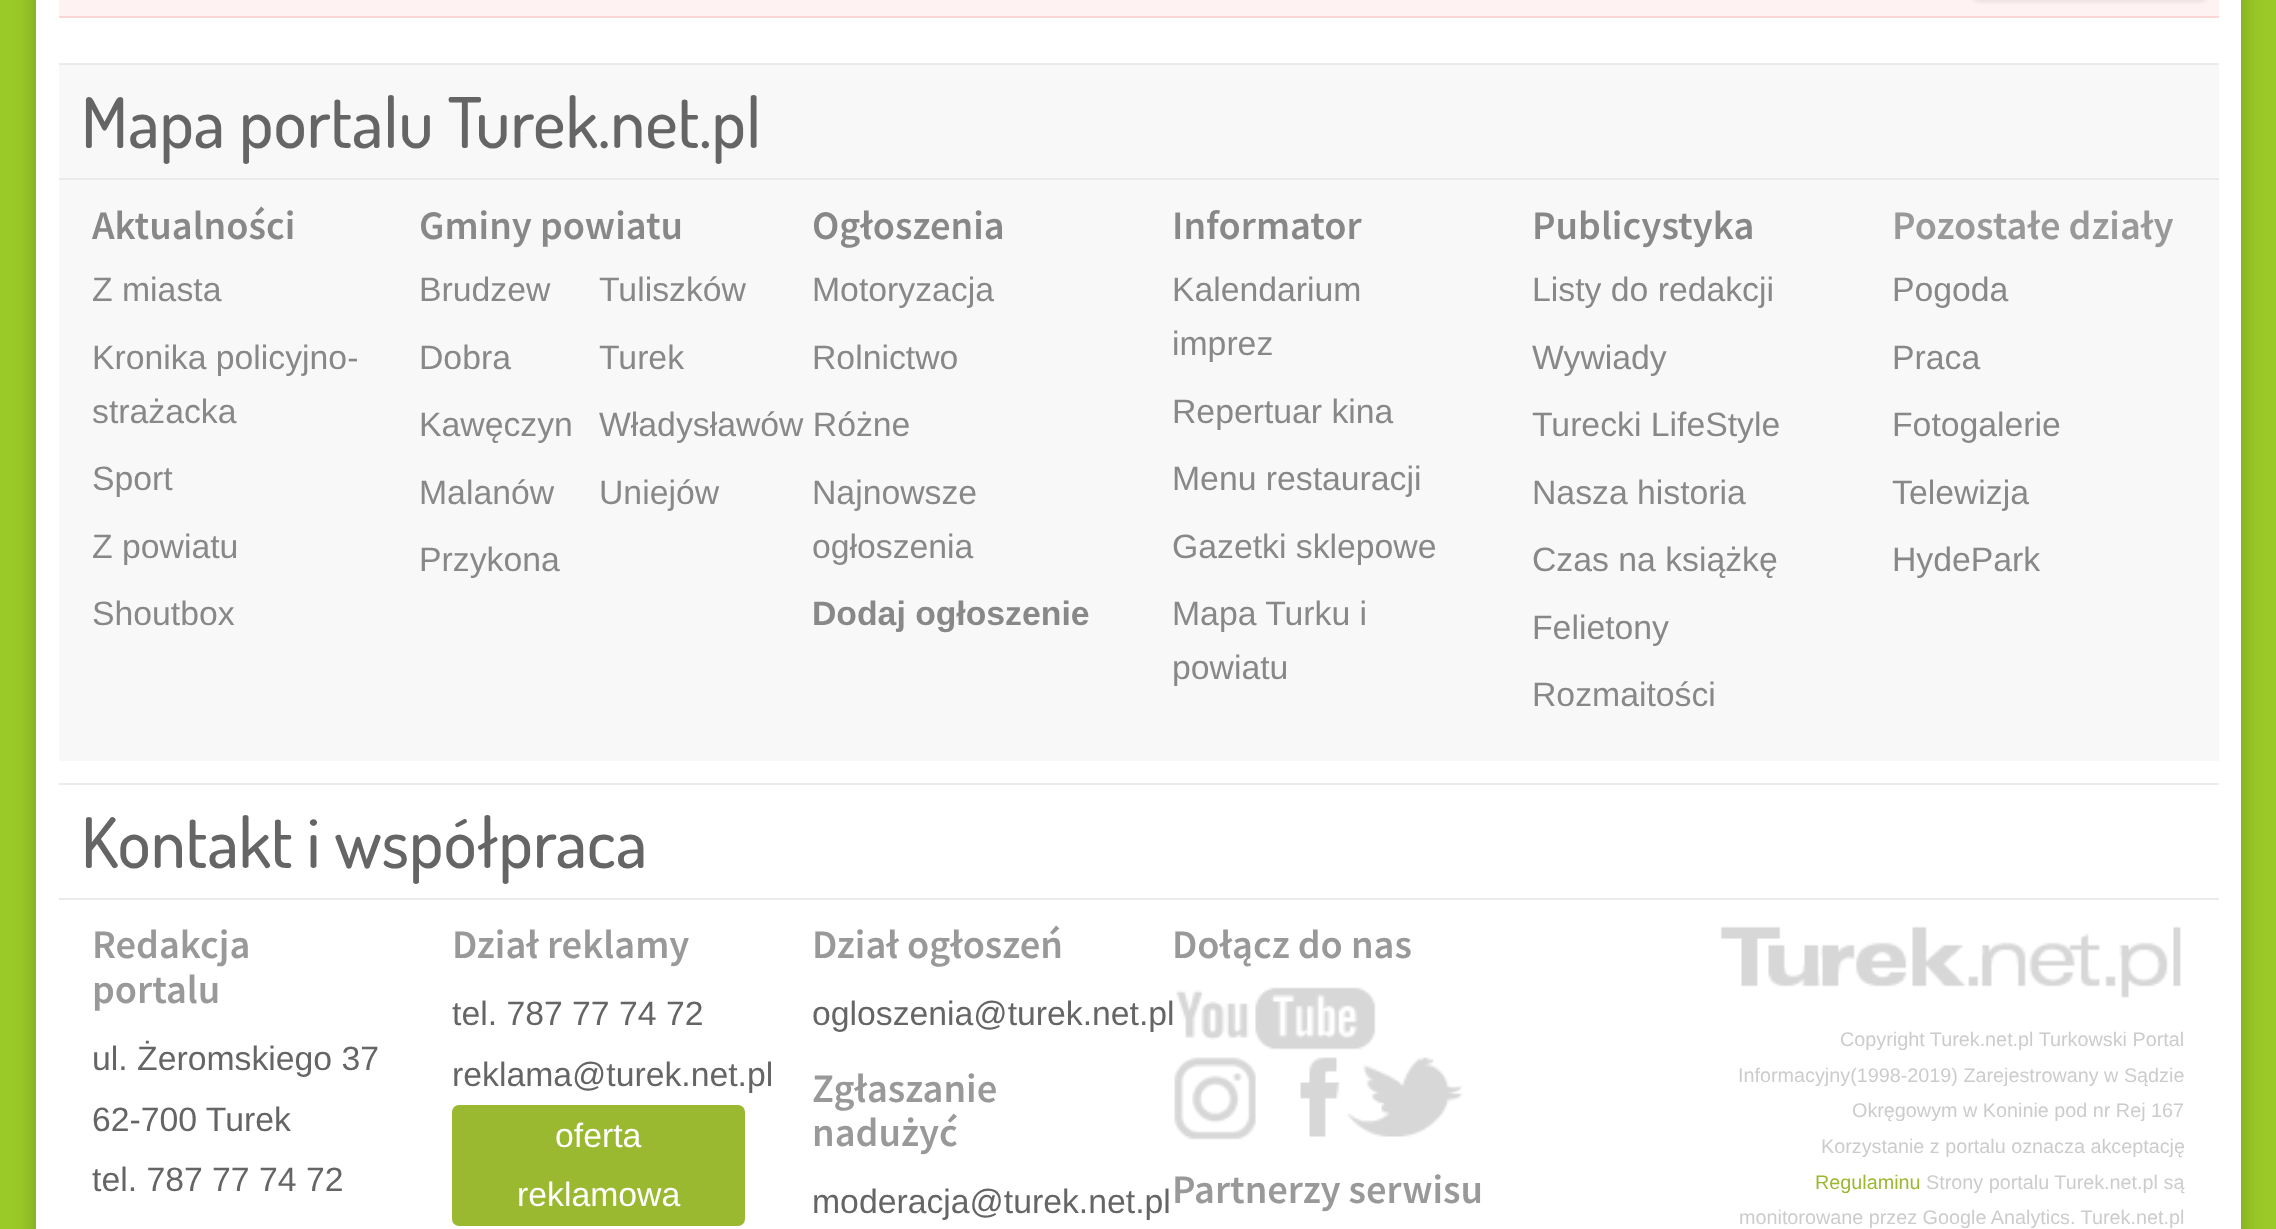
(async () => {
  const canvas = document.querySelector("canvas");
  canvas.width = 2276;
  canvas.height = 1229;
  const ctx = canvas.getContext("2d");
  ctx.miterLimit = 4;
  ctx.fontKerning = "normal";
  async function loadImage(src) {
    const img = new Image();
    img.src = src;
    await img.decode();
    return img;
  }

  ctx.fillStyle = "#9aca28";
  ctx.fillRect(0, 0, 2276, 1229);
  ctx.fillStyle = "rgba(0, 0, 0, 0.22)";
  ctx.filter = "blur(11px)";
  ctx.beginPath();
  ctx.rect(36, -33, 2205, 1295);
  ctx.fill();
  ctx.filter = "none";
  for (const [x, y, w, h, color] of [
    [36, 0, 2205, 1229, "#ffffff"],
    [59, 0, 2160, 16, "#fff2f2"],
    [59, 16, 2160, 2, "#fcd5d5"],
  ]) {
    ctx.fillStyle = color;
    ctx.fillRect(x, y, w, h);
  }
  ctx.fillStyle = "rgba(0, 0, 0, 0.08)";
  ctx.filter = "blur(2px)";
  ctx.beginPath();
  ctx.roundRect(1973, -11, 234, 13, 5);
  ctx.fill();
  ctx.filter = "none";
  for (const [x, y, w, h, color] of [
    [59, 65, 2160, 696, "#f8f8f8"],
    [59, 63, 2160, 2, "#ebebeb"],
    [59, 178, 2160, 2, "#ebebeb"],
    [59, 783, 2160, 2, "#ebebeb"],
    [59, 898, 2160, 2, "#ebebeb"],
  ]) {
    ctx.fillStyle = color;
    ctx.fillRect(x, y, w, h);
  }
  ctx.fillStyle = "#9ab830";
  ctx.beginPath();
  ctx.roundRect(453, 1106, 291, 119, 6);
  ctx.fill();
  ctx.strokeStyle = "#9ab830";
  ctx.lineWidth = 2;
  ctx.stroke();
  ctx.drawImage(await loadImage("img/1.png"), 1176, 987, 200, 63);
  ctx.drawImage(await loadImage("img/2.png"), 1174, 1057, 82, 83);
  ctx.drawImage(await loadImage("img/3.png"), 1300, 1057, 40, 80);
  ctx.drawImage(await loadImage("img/4.png"), 1347, 1057, 116, 80);
  ctx.drawImage(await loadImage("img/5.png"), 1720, 926, 461, 72);
  ctx.font = "500 69.75px Dosis";
  ctx.fillStyle = "#656565";
  ctx.fillText("Mapa portalu Turek.net.pl", 81, 148);
  ctx.font = "600 40.5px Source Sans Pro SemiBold";
  ctx.fillStyle = "#888888";
  ctx.fillText("Aktualności", 92, 239);
  ctx.font = "33.75px Liberation Sans";
  for (const [text, x, y] of [
    ["Z miasta", 92, 301],
    ["Kronika policyjno-", 92, 369],
    ["strażacka", 92, 423],
    ["Sport", 92, 490],
    ["Z powiatu", 92, 558],
    ["Shoutbox", 92, 625],
  ]) {
    ctx.fillText(text, x, y);
  }
  ctx.font = "600 40.5px Source Sans Pro SemiBold";
  ctx.fillText("Gminy powiatu", 419, 239);
  ctx.font = "33.75px Liberation Sans";
  for (const [text, x, y] of [
    ["Brudzew", 419, 301],
    ["Dobra", 419, 369],
    ["Kawęczyn", 419, 436],
    ["Malanów", 419, 504],
    ["Przykona", 419, 571],
    ["Tuliszków", 599, 301],
    ["Turek", 599, 369],
    ["Władysławów Różne", 599, 436],
    ["Uniejów", 599, 504],
  ]) {
    ctx.fillText(text, x, y);
  }
  ctx.font = "600 40.5px Source Sans Pro SemiBold";
  ctx.fillText("Ogłoszenia", 812, 239);
  ctx.font = "33.75px Liberation Sans";
  for (const [text, x, y] of [
    ["Motoryzacja", 812, 301],
    ["Rolnictwo", 812, 369],
    ["Najnowsze", 812, 504],
    ["ogłoszenia", 812, 558],
  ]) {
    ctx.fillText(text, x, y);
  }
  ctx.font = "bold 33.75px Liberation Sans";
  ctx.fillText("Dodaj ogłoszenie", 812, 625);
  ctx.font = "600 40.5px Source Sans Pro SemiBold";
  ctx.fillText("Informator", 1172, 239);
  ctx.font = "33.75px Liberation Sans";
  for (const [text, x, y] of [
    ["Kalendarium", 1172, 301],
    ["imprez", 1172, 355],
    ["Repertuar kina", 1172, 423],
    ["Menu restauracji", 1172, 490],
    ["Gazetki sklepowe", 1172, 558],
    ["Mapa Turku i", 1172, 625],
    ["powiatu", 1172, 679],
  ]) {
    ctx.fillText(text, x, y);
  }
  ctx.font = "600 40.5px Source Sans Pro SemiBold";
  ctx.fillText("Publicystyka", 1532, 239);
  ctx.font = "33.75px Liberation Sans";
  for (const [text, x, y] of [
    ["Listy do redakcji", 1532, 301],
    ["Wywiady", 1532, 369],
    ["Turecki LifeStyle", 1532, 436],
    ["Nasza historia", 1532, 504],
    ["Czas na książkę", 1532, 571],
    ["Felietony", 1532, 639],
    ["Rozmaitości", 1532, 706],
  ]) {
    ctx.fillText(text, x, y);
  }
  ctx.font = "600 40.5px Source Sans Pro SemiBold";
  ctx.fillStyle = "#999999";
  ctx.fillText("Pozostałe działy", 1892, 239);
  ctx.font = "33.75px Liberation Sans";
  ctx.fillStyle = "#888888";
  for (const [text, x, y] of [
    ["Pogoda", 1892, 301],
    ["Praca", 1892, 369],
    ["Fotogalerie", 1892, 436],
    ["Telewizja", 1892, 504],
    ["HydePark", 1892, 571],
  ]) {
    ctx.fillText(text, x, y);
  }
  ctx.font = "500 69.75px Dosis";
  ctx.fillStyle = "#656565";
  ctx.fillText("Kontakt i współpraca", 81, 868);
  ctx.font = "600 40.5px Source Sans Pro SemiBold";
  ctx.fillStyle = "#999999";
  ctx.fillText("Redakcja", 92, 958);
  ctx.fillText("portalu", 92, 1003);
  ctx.font = "33.75px Liberation Sans";
  ctx.fillStyle = "#656565";
  for (const [text, x, y] of [
    ["ul. Żeromskiego 37", 92, 1070],
    ["62-700 Turek", 92, 1131],
    ["tel. 787 77 74 72", 92, 1191],
  ]) {
    ctx.fillText(text, x, y);
  }
  ctx.font = "600 40.5px Source Sans Pro SemiBold";
  ctx.fillStyle = "#999999";
  ctx.fillText("Dział reklamy", 452, 958);
  ctx.font = "33.75px Liberation Sans";
  ctx.fillStyle = "#656565";
  ctx.fillText("tel. 787 77 74 72", 452, 1025);
  ctx.fillText("reklama@turek.net.pl", 452, 1086);
  ctx.fillStyle = "#ffffff";
  ctx.fillText("oferta", 555, 1147);
  ctx.fillText("reklamowa", 517, 1206);
  ctx.font = "600 40.5px Source Sans Pro SemiBold";
  ctx.fillStyle = "#999999";
  ctx.fillText("Dział ogłoszeń", 812, 958);
  ctx.font = "33.75px Liberation Sans";
  ctx.fillStyle = "#656565";
  ctx.fillText("ogloszenia@turek.net.pl", 812, 1025);
  ctx.font = "600 40.5px Source Sans Pro SemiBold";
  ctx.fillStyle = "#999999";
  ctx.fillText("Zgłaszanie", 812, 1102);
  ctx.fillText("nadużyć", 812, 1146);
  ctx.font = "33.75px Liberation Sans";
  ctx.fillStyle = "#656565";
  ctx.fillText("moderacja@turek.net.pl", 812, 1213);
  ctx.font = "600 40.5px Source Sans Pro SemiBold";
  ctx.fillStyle = "#999999";
  ctx.fillText("Dołącz do nas", 1172, 958);
  ctx.fillText("Partnerzy serwisu", 1172, 1203);
  ctx.font = "19.8px Liberation Sans";
  ctx.fillStyle = "#cccccc";
  for (const [text, x, y] of [
    ["Copyright Turek.net.pl Turkowski Portal", 1840, 1046],
    ["Informacyjny(1998-2019) Zarejestrowany w Sądzie", 1738, 1082],
    ["Okręgowym w Koninie pod nr Rej 167", 1852, 1117],
    ["Korzystanie z portalu oznacza akceptację", 1821, 1153],
  ]) {
    ctx.fillText(text, x, y);
  }
  ctx.fillStyle = "#9bb830";
  ctx.fillText("Regulaminu", 1815, 1189);
  ctx.fillStyle = "#cccccc";
  ctx.fillText("Strony portalu Turek.net.pl są", 1926, 1189);
  ctx.fillText("monitorowane przez Google Analytics. Turek.net.pl", 1739, 1224);
})();
